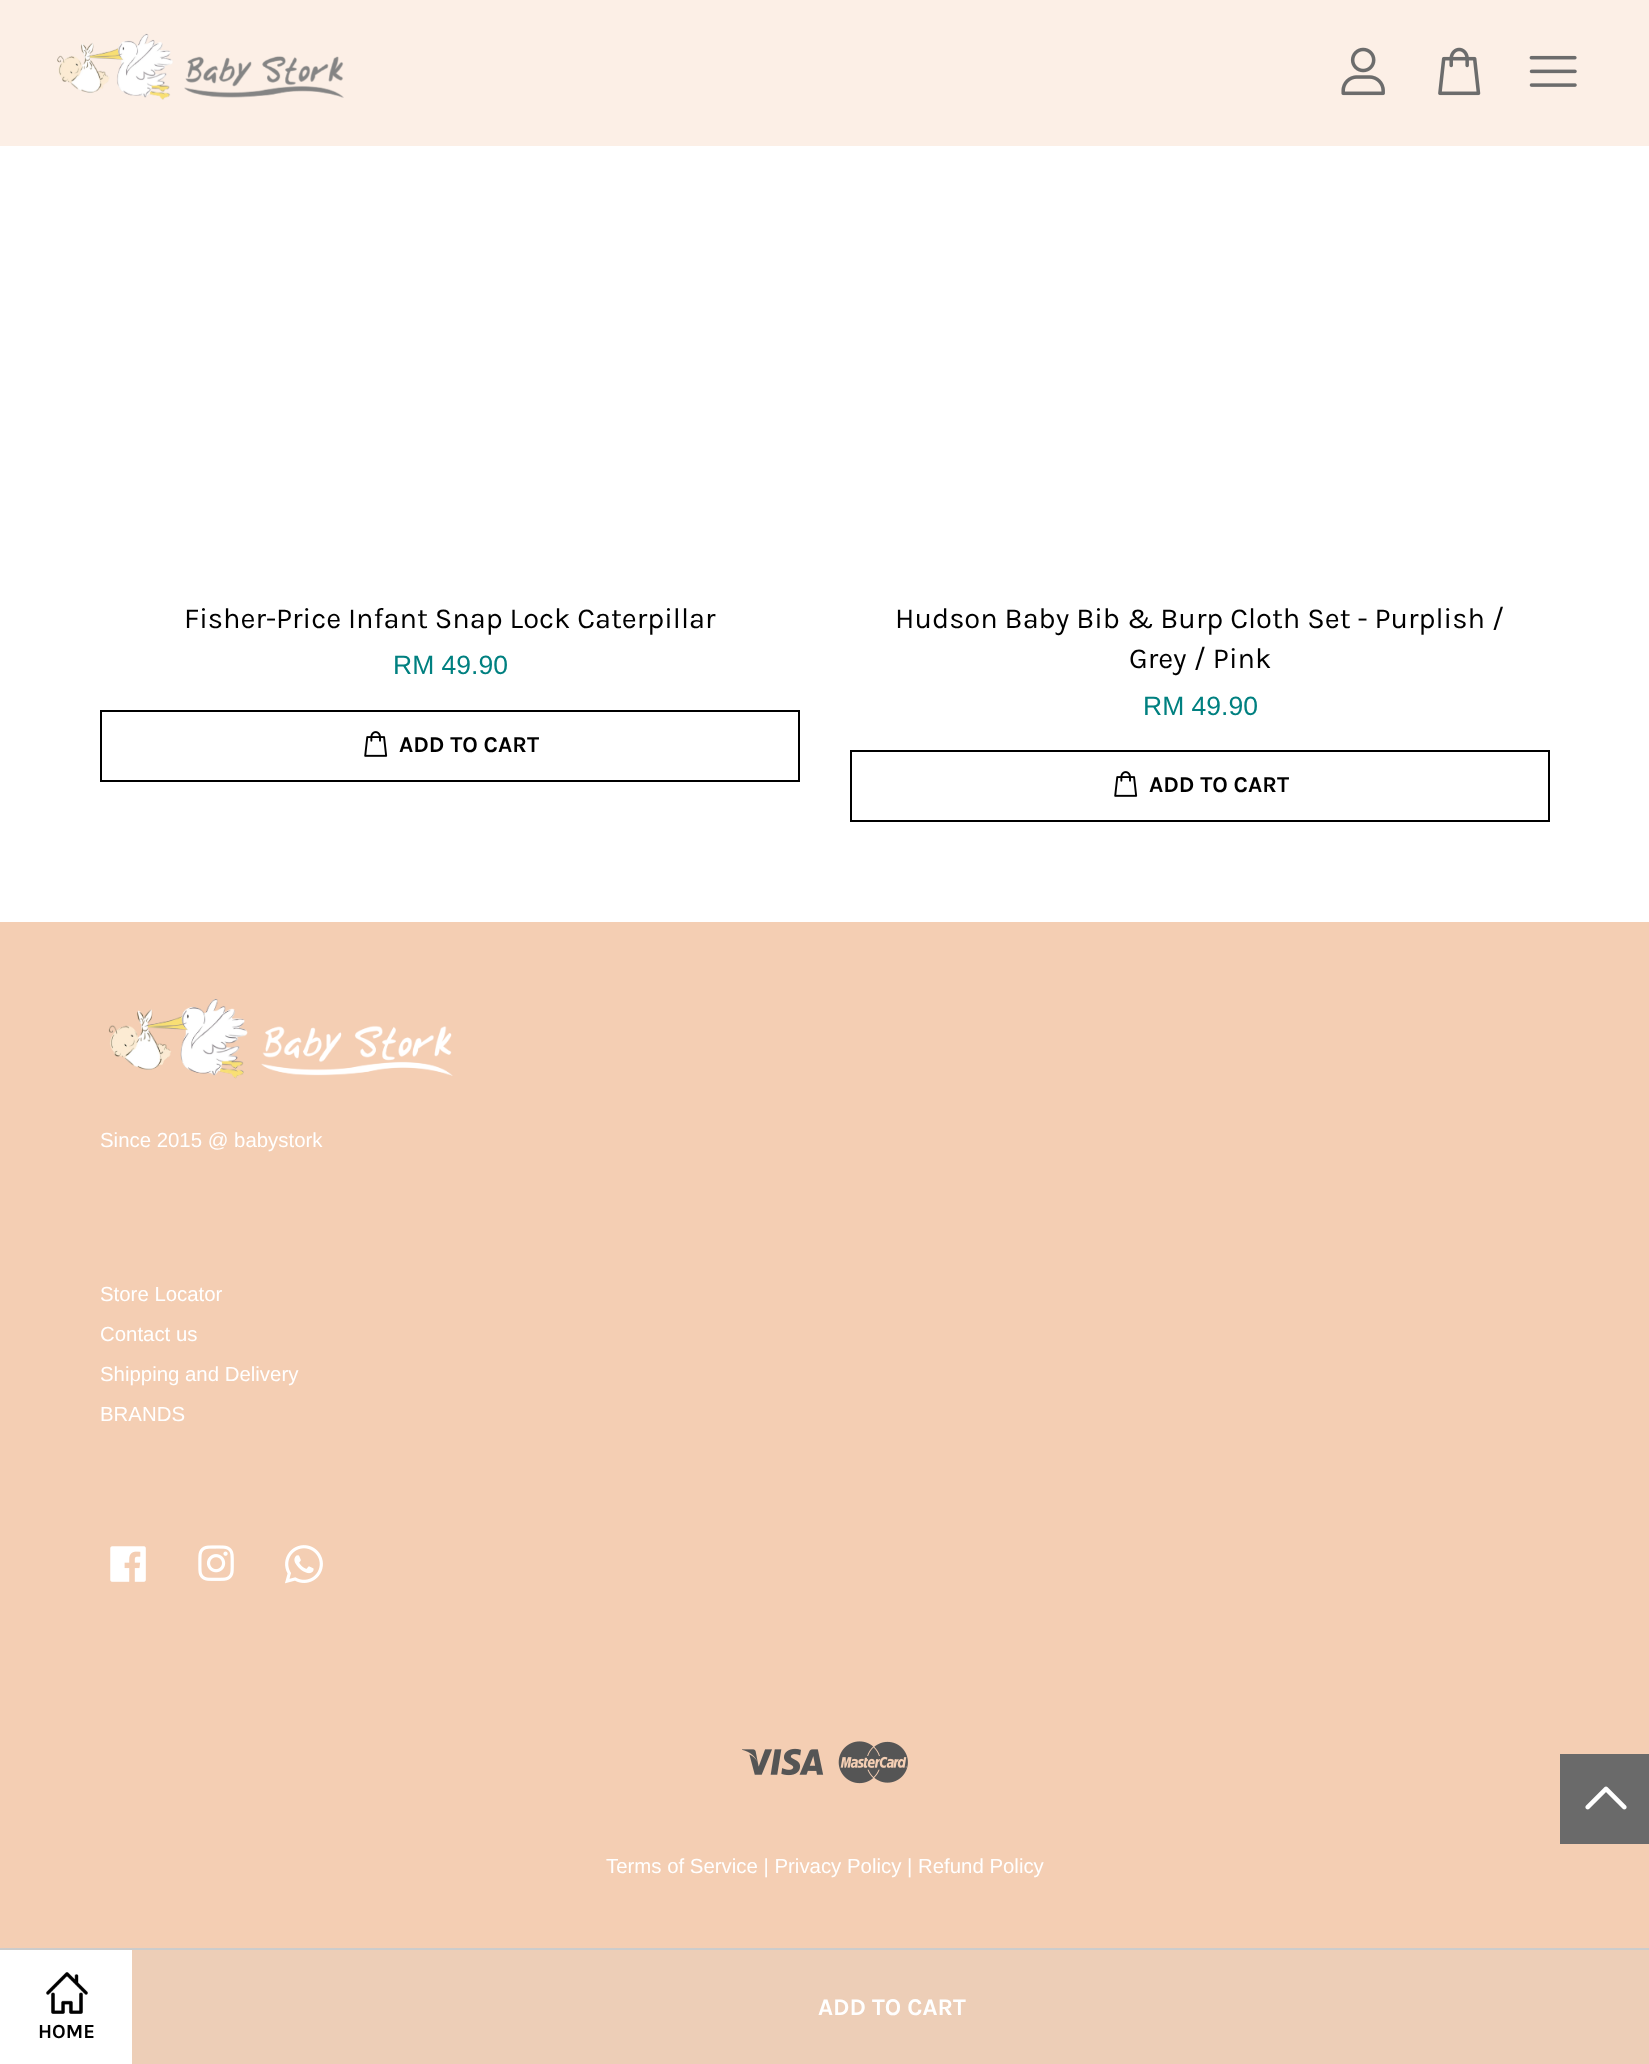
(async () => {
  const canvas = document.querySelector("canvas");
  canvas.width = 1649;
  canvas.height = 2064;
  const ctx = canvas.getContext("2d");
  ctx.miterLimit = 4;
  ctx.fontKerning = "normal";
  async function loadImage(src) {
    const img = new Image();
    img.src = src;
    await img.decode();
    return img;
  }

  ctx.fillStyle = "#ffffff";
  ctx.fillRect(0, 0, 1649, 2064);
  ctx.fillStyle = "#fcefe6";
  ctx.fillRect(0, 0, 1649, 146);
  ctx.drawImage(await loadImage("img/1.png"), 57, 33, 287, 67);
  ctx.drawImage(await loadImage("img/2.png"), 1341, 47, 44, 49);
  ctx.drawImage(await loadImage("img/3.png"), 1438, 47, 43, 49);
  ctx.drawImage(await loadImage("img/4.png"), 1529, 55, 48, 32);
  ctx.strokeStyle = "#000000";
  ctx.lineWidth = 2;
  ctx.strokeRect(101, 711, 698, 70);
  ctx.drawImage(await loadImage("img/5.png"), 364, 731, 24, 26);
  ctx.strokeRect(851, 751, 698, 70);
  ctx.drawImage(await loadImage("img/5.png"), 1114, 771, 24, 26);
  ctx.fillStyle = "#cccccc";
  ctx.fillRect(0, 1948, 1649, 2);
  ctx.fillStyle = "#edceb7";
  ctx.fillRect(132, 1950, 1517, 114);
  ctx.drawImage(await loadImage("img/6.png"), 46, 1972, 42, 42);
  ctx.fillStyle = "#f4ceb3";
  ctx.fillRect(0, 922, 1649, 1026);
  ctx.drawImage(await loadImage("img/7.png"), 108, 999, 345, 80);
  ctx.drawImage(await loadImage("img/8.png"), 110, 1546, 36, 36);
  ctx.drawImage(await loadImage("img/9.png"), 198, 1545, 36, 36);
  ctx.drawImage(await loadImage("img/10.png"), 285, 1545, 38, 39);
  ctx.drawImage(await loadImage("img/11.png"), 742, 1748, 82, 28);
  ctx.drawImage(await loadImage("img/12.png"), 838, 1741, 70, 43);
  ctx.fillStyle = "#6a6a6a";
  ctx.fillRect(1560, 1754, 89, 90);
  ctx.drawImage(await loadImage("img/13.png"), 1585, 1786, 42, 24);
  ctx.font = "29px Karla";
  ctx.fillStyle = "#000000";
  ctx.fillText("Fisher-Price Infant Snap Lock Caterpillar", 184, 628);
  ctx.font = "26.5px Liberation Sans";
  ctx.fillStyle = "#008080";
  ctx.fillText("RM 49.90", 393, 674);
  ctx.font = "bold 22.75px Karla";
  ctx.fillStyle = "#000000";
  ctx.fillText("ADD TO CART", 399, 752);
  ctx.font = "29px Karla";
  ctx.fillText("Hudson Baby Bib & Burp Cloth Set - Purplish /", 895, 628);
  ctx.fillText("Grey / Pink", 1129, 668);
  ctx.font = "26.5px Liberation Sans";
  ctx.fillStyle = "#008080";
  ctx.fillText("RM 49.90", 1143, 715);
  ctx.font = "bold 22.75px Karla";
  ctx.fillStyle = "#000000";
  ctx.fillText("ADD TO CART", 1149, 792);
  ctx.font = "bold 24px Karla";
  ctx.fillStyle = "#ffffff";
  ctx.fillText("ADD TO CART", 818, 2015);
  ctx.font = "bold 20px Karla";
  ctx.fillStyle = "#000000";
  ctx.fillText("HOME", 38, 2038);
  ctx.font = "20.4px Liberation Sans";
  ctx.fillStyle = "#ffffff";
  for (const [text, x, y] of [
    ["Since 2015 @ babystork", 100, 1147],
    ["Store Locator", 100, 1301],
    ["Contact us", 100, 1341],
    ["Shipping and Delivery", 100, 1381],
    ["BRANDS", 100, 1421],
    ["Terms of Service | Privacy Policy | Refund Policy", 606, 1873],
  ]) {
    ctx.fillText(text, x, y);
  }
})();
